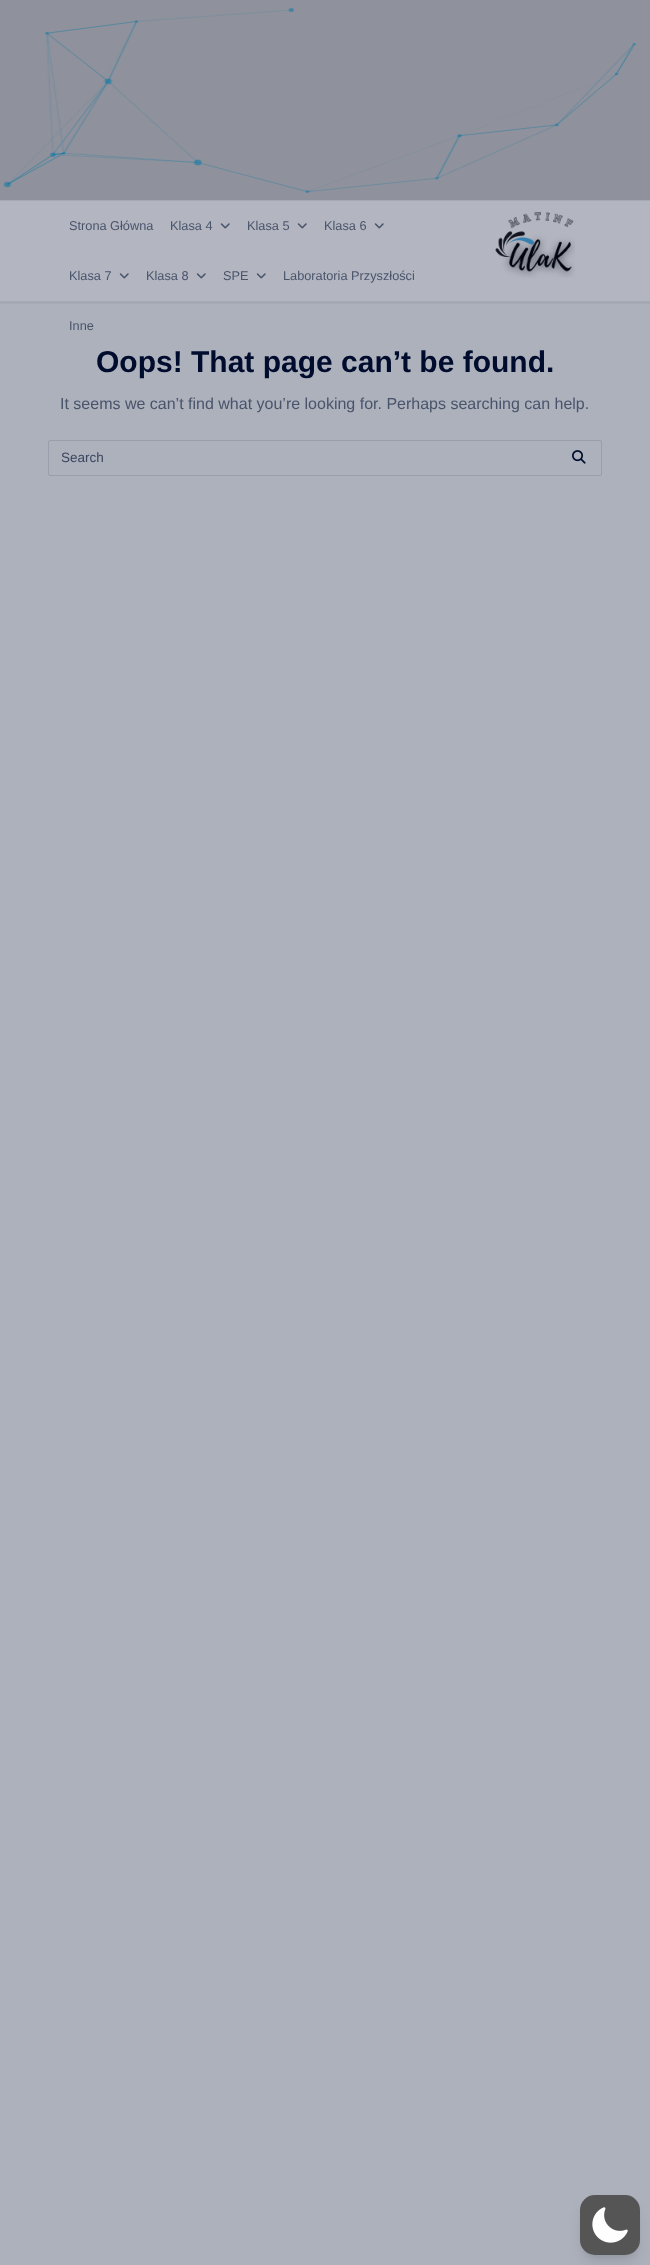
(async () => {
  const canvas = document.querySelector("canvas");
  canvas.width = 650;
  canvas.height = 2265;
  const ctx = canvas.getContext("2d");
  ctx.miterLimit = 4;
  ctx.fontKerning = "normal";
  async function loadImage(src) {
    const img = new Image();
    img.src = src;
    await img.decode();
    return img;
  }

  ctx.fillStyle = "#adb1bc";
  ctx.fillRect(0, 0, 650, 2265);
  ctx.fillStyle = "#8f929c";
  ctx.fillRect(0, 0, 650, 200);
  ctx.fillStyle = "#a4a9b4";
  ctx.fillRect(0, 200, 650, 1);
  ctx.drawImage(await loadImage("img/1.png"), 3, 8, 634, 185);
  ctx.fillStyle = "#b3b6c0";
  ctx.fillRect(0, 201, 650, 100);
  ctx.fillStyle = "#a4a9b4";
  ctx.fillRect(0, 301, 650, 3);
  ctx.drawImage(await loadImage("img/2.png"), 220, 223, 10, 6);
  ctx.drawImage(await loadImage("img/2.png"), 297, 223, 10, 6);
  ctx.drawImage(await loadImage("img/2.png"), 374, 223, 10, 6);
  ctx.drawImage(await loadImage("img/2.png"), 119, 273, 10, 6);
  ctx.drawImage(await loadImage("img/2.png"), 196, 273, 10, 6);
  ctx.drawImage(await loadImage("img/2.png"), 256, 273, 10, 6);
  ctx.drawImage(await loadImage("img/3.png"), 495, 212, 80, 66);
  ctx.beginPath();
  ctx.roundRect(48.5, 440.5, 553, 35, 1.5);
  ctx.strokeStyle = "#999eaa";
  ctx.stroke();
  ctx.drawImage(await loadImage("img/4.png"), 572, 450, 14, 14);
  ctx.fillStyle = "rgba(0, 0, 0, 0.1)";
  ctx.filter = "blur(3px)";
  ctx.beginPath();
  ctx.roundRect(584, 2203, 52, 52, 11);
  ctx.fill();
  ctx.filter = "none";
  ctx.filter = "blur(7.5px)";
  ctx.beginPath();
  ctx.roundRect(583, 2208, 54, 54, 12);
  ctx.fill();
  ctx.filter = "none";
  ctx.fillStyle = "#555555";
  ctx.beginPath();
  ctx.roundRect(580, 2195, 60, 60, 15);
  ctx.fill();
  ctx.drawImage(await loadImage("img/5.png"), 592, 2207, 36, 36);
  ctx.font = "12.75px Liberation Sans";
  ctx.fillStyle = "#49546b";
  for (const [text, x, y] of [
    ["Strona Główna", 69, 230],
    ["Klasa 4", 170, 230],
    ["Klasa 5", 247, 230],
    ["Klasa 6", 324, 230],
    ["Klasa 7", 69, 280],
    ["Klasa 8", 146, 280],
    ["SPE", 223, 280],
    ["Laboratoria Przyszłości", 283, 280],
    ["Inne", 69, 330],
  ]) {
    ctx.fillText(text, x, y);
  }
  ctx.font = "bold 30px Liberation Sans";
  ctx.fillStyle = "#000c2d";
  ctx.fillText("Oops! That page can’t be found.", 96, 372);
  ctx.font = "16px Liberation Sans";
  ctx.fillStyle = "#49546b";
  ctx.fillText("It seems we can’t find what you’re looking for. Perhaps searching can help.", 60, 409);
  ctx.font = "13.5px Liberation Sans";
  ctx.fillStyle = "#3c465f";
  ctx.fillText("Search", 61, 462);
})();
